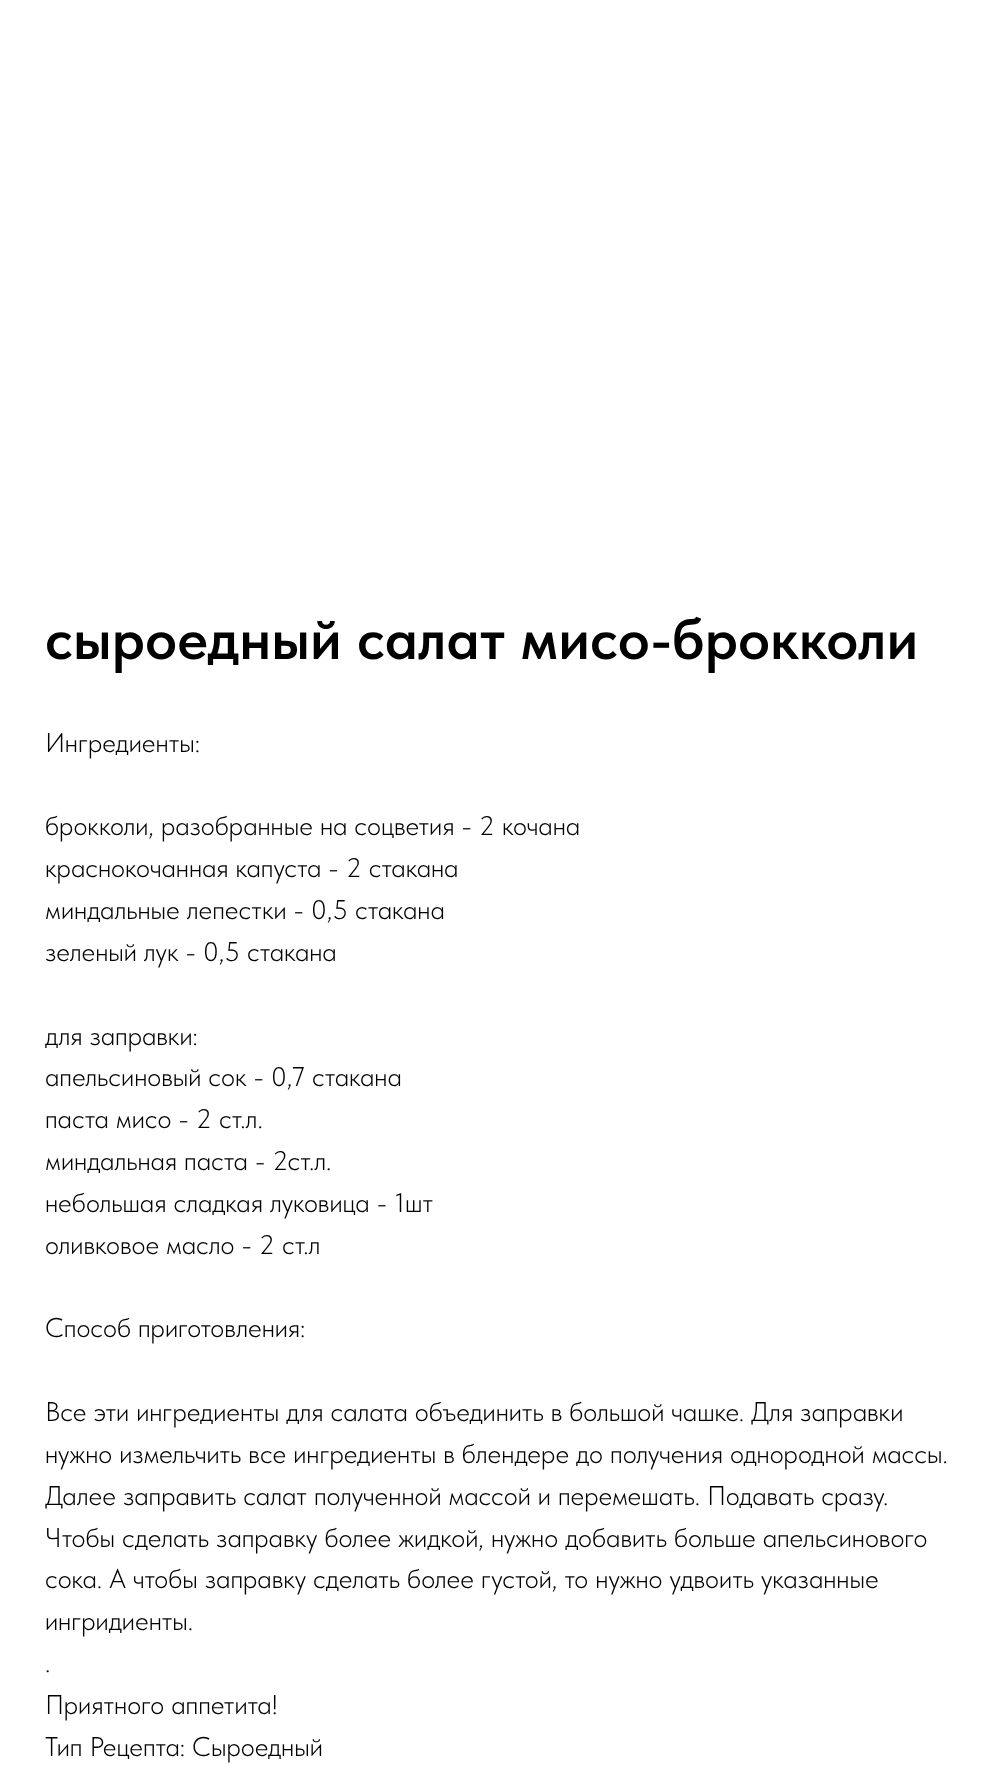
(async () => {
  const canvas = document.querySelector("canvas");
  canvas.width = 997;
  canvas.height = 1769;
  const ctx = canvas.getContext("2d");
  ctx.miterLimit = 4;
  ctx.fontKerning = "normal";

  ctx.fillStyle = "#ffffff";
  ctx.fillRect(0, 0, 997, 1769);
  ctx.font = "600 58.5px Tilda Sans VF";
  ctx.fillStyle = "#000000";
  ctx.fillText("сыроедный салат мисо-брокколи", 45, 659);
  ctx.font = "300 27px Tilda Sans VF";
  for (const [text, x, y] of [
    ["Ингредиенты:", 45, 752],
    ["брокколи, разобранные на соцветия - 2 кочана", 45, 835],
    ["краснокочанная капуста - 2 стакана", 45, 877],
    ["миндальные лепестки - 0,5 стакана", 45, 919],
    ["зеленый лук - 0,5 стакана", 45, 961],
    ["для заправки:", 45, 1045],
    ["апельсиновый сок - 0,7 стакана", 45, 1086],
    ["паста мисо - 2 ст.л.", 45, 1128],
    ["миндальная паста - 2ст.л.", 45, 1170],
    ["небольшая сладкая луковица - 1шт", 45, 1212],
    ["оливковое масло - 2 ст.л", 45, 1254],
    ["Способ приготовления:", 45, 1337],
    ["Все эти ингредиенты для салата объединить в большой чашке. Для заправки", 45, 1421],
    ["нужно измельчить все ингредиенты в блендере до получения однородной массы.", 45, 1463],
    ["Далее заправить салат полученной массой и перемешать. Подавать сразу.", 45, 1505],
    ["Чтобы сделать заправку более жидкой, нужно добавить больше апельсинового", 45, 1547],
    ["сока. А чтобы заправку сделать более густой, то нужно удвоить указанные", 45, 1588],
    ["ингридиенты.", 45, 1630],
    [".", 45, 1672],
    ["Приятного аппетита!", 45, 1714],
    ["Тип Рецепта: Сыроедный", 45, 1756],
  ]) {
    ctx.fillText(text, x, y);
  }
})();
